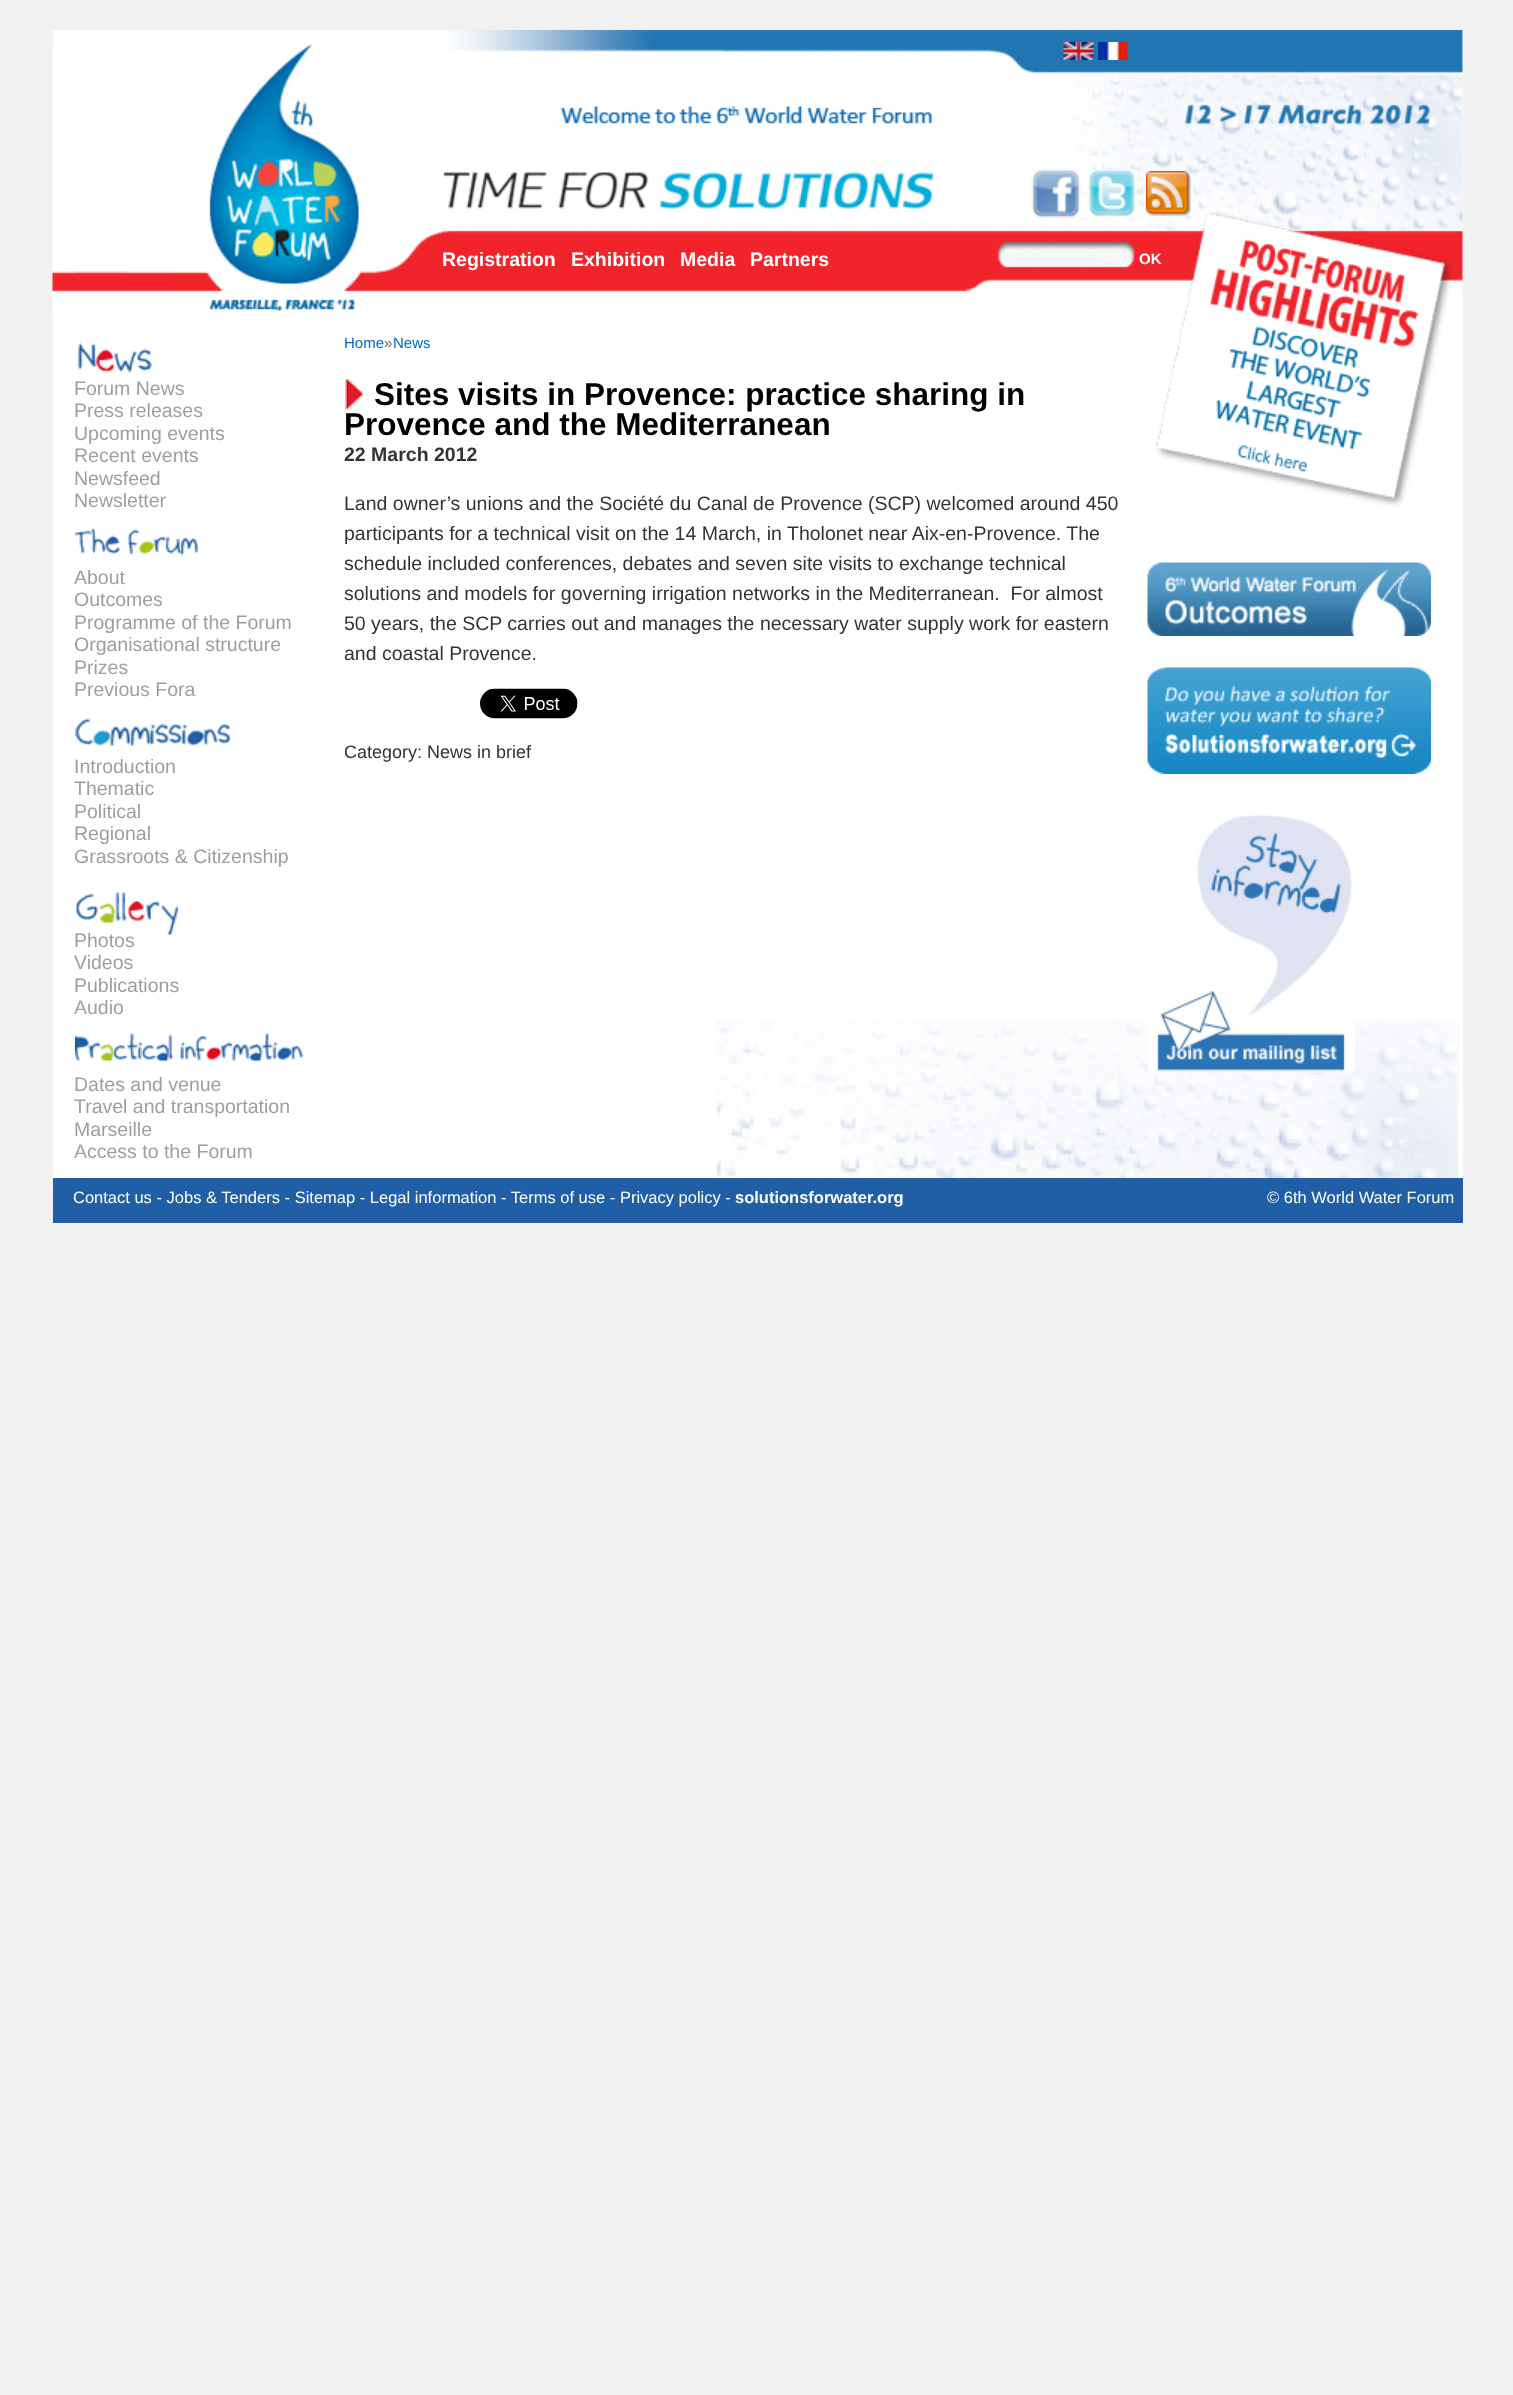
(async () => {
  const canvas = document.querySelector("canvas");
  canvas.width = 1513;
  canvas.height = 2395;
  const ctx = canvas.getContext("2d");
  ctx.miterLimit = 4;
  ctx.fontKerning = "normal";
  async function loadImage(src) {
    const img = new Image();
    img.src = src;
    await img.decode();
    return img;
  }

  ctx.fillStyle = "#f1f1f1";
  ctx.fillRect(0, 0, 1513, 2395);
  ctx.fillStyle = "#ffffff";
  ctx.fillRect(53, 30, 1410, 1148);
  ctx.drawImage(await loadImage("img/1.png"), 716, 1020, 743, 158);
  ctx.drawImage(await loadImage("img/2.png"), 52, 30, 1411, 283);
  ctx.drawImage(await loadImage("img/3.png"), 1063, 42, 31, 18);
  ctx.drawImage(await loadImage("img/4.png"), 1098, 42, 30, 18);
  ctx.drawImage(await loadImage("img/5.png"), 1146, 171, 45, 45);
  ctx.drawImage(await loadImage("img/7.png"), 1147, 562, 284, 74);
  ctx.drawImage(await loadImage("img/8.png"), 1147, 667, 284, 107);
  ctx.drawImage(await loadImage("img/9.png"), 1147, 815, 208, 258);
  ctx.drawImage(await loadImage("img/10.png"), 77, 343, 75, 30);
  ctx.drawImage(await loadImage("img/11.png"), 75, 527, 124, 29);
  ctx.drawImage(await loadImage("img/12.png"), 75, 718, 157, 28);
  ctx.drawImage(await loadImage("img/13.png"), 76, 892, 103, 43);
  ctx.drawImage(await loadImage("img/14.png"), 75, 1033, 229, 29);
  ctx.drawImage(await loadImage("img/15.png"), 345, 379, 18, 31);
  ctx.drawImage(await loadImage("img/16.png"), 480, 688, 98, 31);
  ctx.fillStyle = "#205fa6";
  ctx.fillRect(53, 1178, 1410, 45);
  ctx.font = "bold 19.5px Liberation Sans";
  ctx.fillStyle = "#ffffff";
  for (const [text, x, y] of [
    ["Registration", 442, 266],
    ["Exhibition", 571, 266],
    ["Media", 680, 266],
    ["Partners", 750, 266],
  ]) {
    ctx.fillText(text, x, y);
  }
  ctx.font = "bold 15px Liberation Sans";
  ctx.fillText("OK", 1139, 264);
  ctx.drawImage(await loadImage("img/6.png"), 1155, 211, 298, 296);
  ctx.font = "19.5px Liberation Sans";
  ctx.fillStyle = "#9d9ea0";
  for (const [text, x, y] of [
    ["Forum News", 74, 395],
    ["Press releases", 74, 417],
    ["Upcoming events", 74, 440],
    ["Recent events", 74, 462],
    ["Newsfeed", 74, 485],
    ["Newsletter", 74, 507],
    ["About", 74, 584],
    ["Outcomes", 74, 606],
    ["Programme of the Forum", 74, 629],
    ["Organisational structure", 74, 651],
    ["Prizes", 74, 674],
    ["Previous Fora", 74, 696],
    ["Introduction", 74, 773],
    ["Thematic", 74, 795],
    ["Political", 74, 818],
    ["Regional", 74, 840],
    ["Grassroots & Citizenship", 74, 863],
    ["Photos", 74, 947],
    ["Videos", 74, 969],
    ["Publications", 74, 992],
    ["Audio", 74, 1014],
    ["Dates and venue", 74, 1091],
    ["Travel and transportation", 74, 1113],
    ["Marseille", 74, 1136],
    ["Access to the Forum", 74, 1158],
  ]) {
    ctx.fillText(text, x, y);
  }
  ctx.font = "15px Liberation Sans";
  ctx.fillStyle = "#0066cc";
  ctx.fillText("Home", 344, 348);
  ctx.fillStyle = "#666666";
  ctx.fillText("»", 384, 348);
  ctx.fillStyle = "#0066cc";
  ctx.fillText("News", 393, 348);
  ctx.font = "bold 31.5px Liberation Sans";
  ctx.fillStyle = "#000000";
  ctx.fillText("Sites visits in Provence: practice sharing in", 374, 405);
  ctx.fillText("Provence and the Mediterranean", 344, 435);
  ctx.font = "bold 19.5px Liberation Sans";
  ctx.fillStyle = "#333333";
  ctx.fillText("22 March 2012", 344, 461);
  ctx.font = "19.5px Liberation Sans";
  for (const [text, x, y] of [
    ["Land owner’s unions and the Société du Canal de Provence (SCP) welcomed around 450", 344, 510],
    ["participants for a technical visit on the 14 March, in", 344, 540],
    ["Tholonet near Aix-en-Provence. The", 787, 540],
    ["schedule included conferences, debates and seven site visits to exchange technical", 344, 570],
    ["solutions and models for governing irrigation networks in the Mediterranean.  For almost", 344, 600],
    ["50 years, the SCP carries out and manages the necessary water supply work for eastern", 344, 630],
    ["and coastal Provence.", 344, 660],
  ]) {
    ctx.fillText(text, x, y);
  }
  ctx.font = "18px Liberation Sans";
  ctx.fillText("Category: News in brief", 344, 758);
  ctx.font = "16.5px Liberation Sans";
  ctx.fillStyle = "#ffffff";
  ctx.fillText("Contact us - Jobs & Tenders - Sitemap - Legal information - Terms of use - Privacy policy -", 73, 1203);
  ctx.font = "bold 16.5px Liberation Sans";
  ctx.fillText("solutionsforwater.org", 735, 1203);
  ctx.font = "16.5px Liberation Sans";
  ctx.fillText("© 6th World Water Forum", 1267, 1203);
})();
